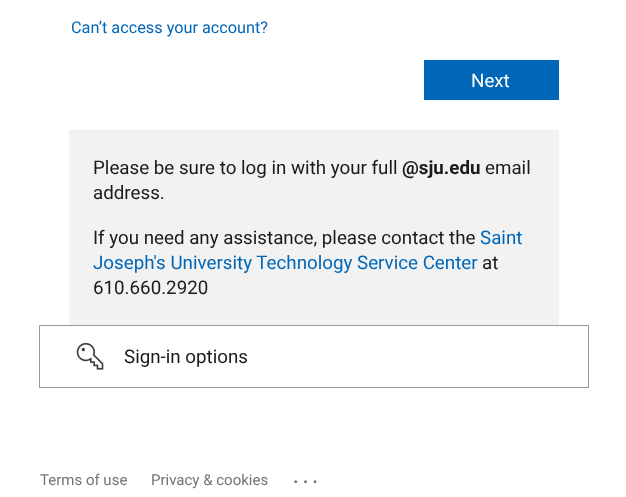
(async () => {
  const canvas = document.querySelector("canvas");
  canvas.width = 626;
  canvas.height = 497;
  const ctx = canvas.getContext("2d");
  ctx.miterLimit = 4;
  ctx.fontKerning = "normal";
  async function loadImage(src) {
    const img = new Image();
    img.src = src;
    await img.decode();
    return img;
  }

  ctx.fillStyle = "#ffffff";
  ctx.fillRect(0, 0, 626, 497);
  ctx.fillStyle = "#0067b8";
  ctx.fillRect(424, 60, 135, 40);
  ctx.fillStyle = "#f2f2f2";
  ctx.fillRect(69, 130, 490, 195);
  ctx.strokeStyle = "#999999";
  ctx.strokeRect(39.5, 325.5, 549, 62);
  ctx.drawImage(await loadImage("img/1.png"), 76, 342, 28, 28);
  ctx.font = "16.25px Roboto";
  ctx.fillStyle = "#0067b8";
  ctx.fillText("Can’t access your account?", 71, 33);
  ctx.font = "18.75px Roboto";
  ctx.fillStyle = "#ffffff";
  ctx.fillText("Next", 471, 87);
  ctx.fillStyle = "#1b1b1b";
  ctx.fillText("Please be sure to log in with your full", 93, 174);
  ctx.font = "bold 18.75px Roboto";
  ctx.fillText("@sju.edu", 402, 174);
  ctx.font = "18.75px Roboto";
  for (const [text, x, y] of [
    ["email", 485, 174],
    ["address.", 93, 199],
    ["If you need any assistance, please contact the", 93, 244],
  ]) {
    ctx.fillText(text, x, y);
  }
  ctx.fillStyle = "#0067b8";
  ctx.fillText("Saint", 480, 244);
  ctx.fillText("Joseph's University Technology Service Center", 93, 269);
  ctx.fillStyle = "#1b1b1b";
  for (const [text, x, y] of [
    ["at", 482, 269],
    ["610.660.2920", 93, 294],
    ["Sign-in options", 124, 363],
  ]) {
    ctx.fillText(text, x, y);
  }
  ctx.font = "15px Roboto";
  ctx.fillStyle = "#747474";
  ctx.fillText("Terms of use", 40, 485);
  ctx.fillText("Privacy & cookies", 151, 485);
  ctx.letterSpacing = "4px";
  ctx.font = "600 20px Roboto";
  ctx.fillText("...", 293, 483);
})();
